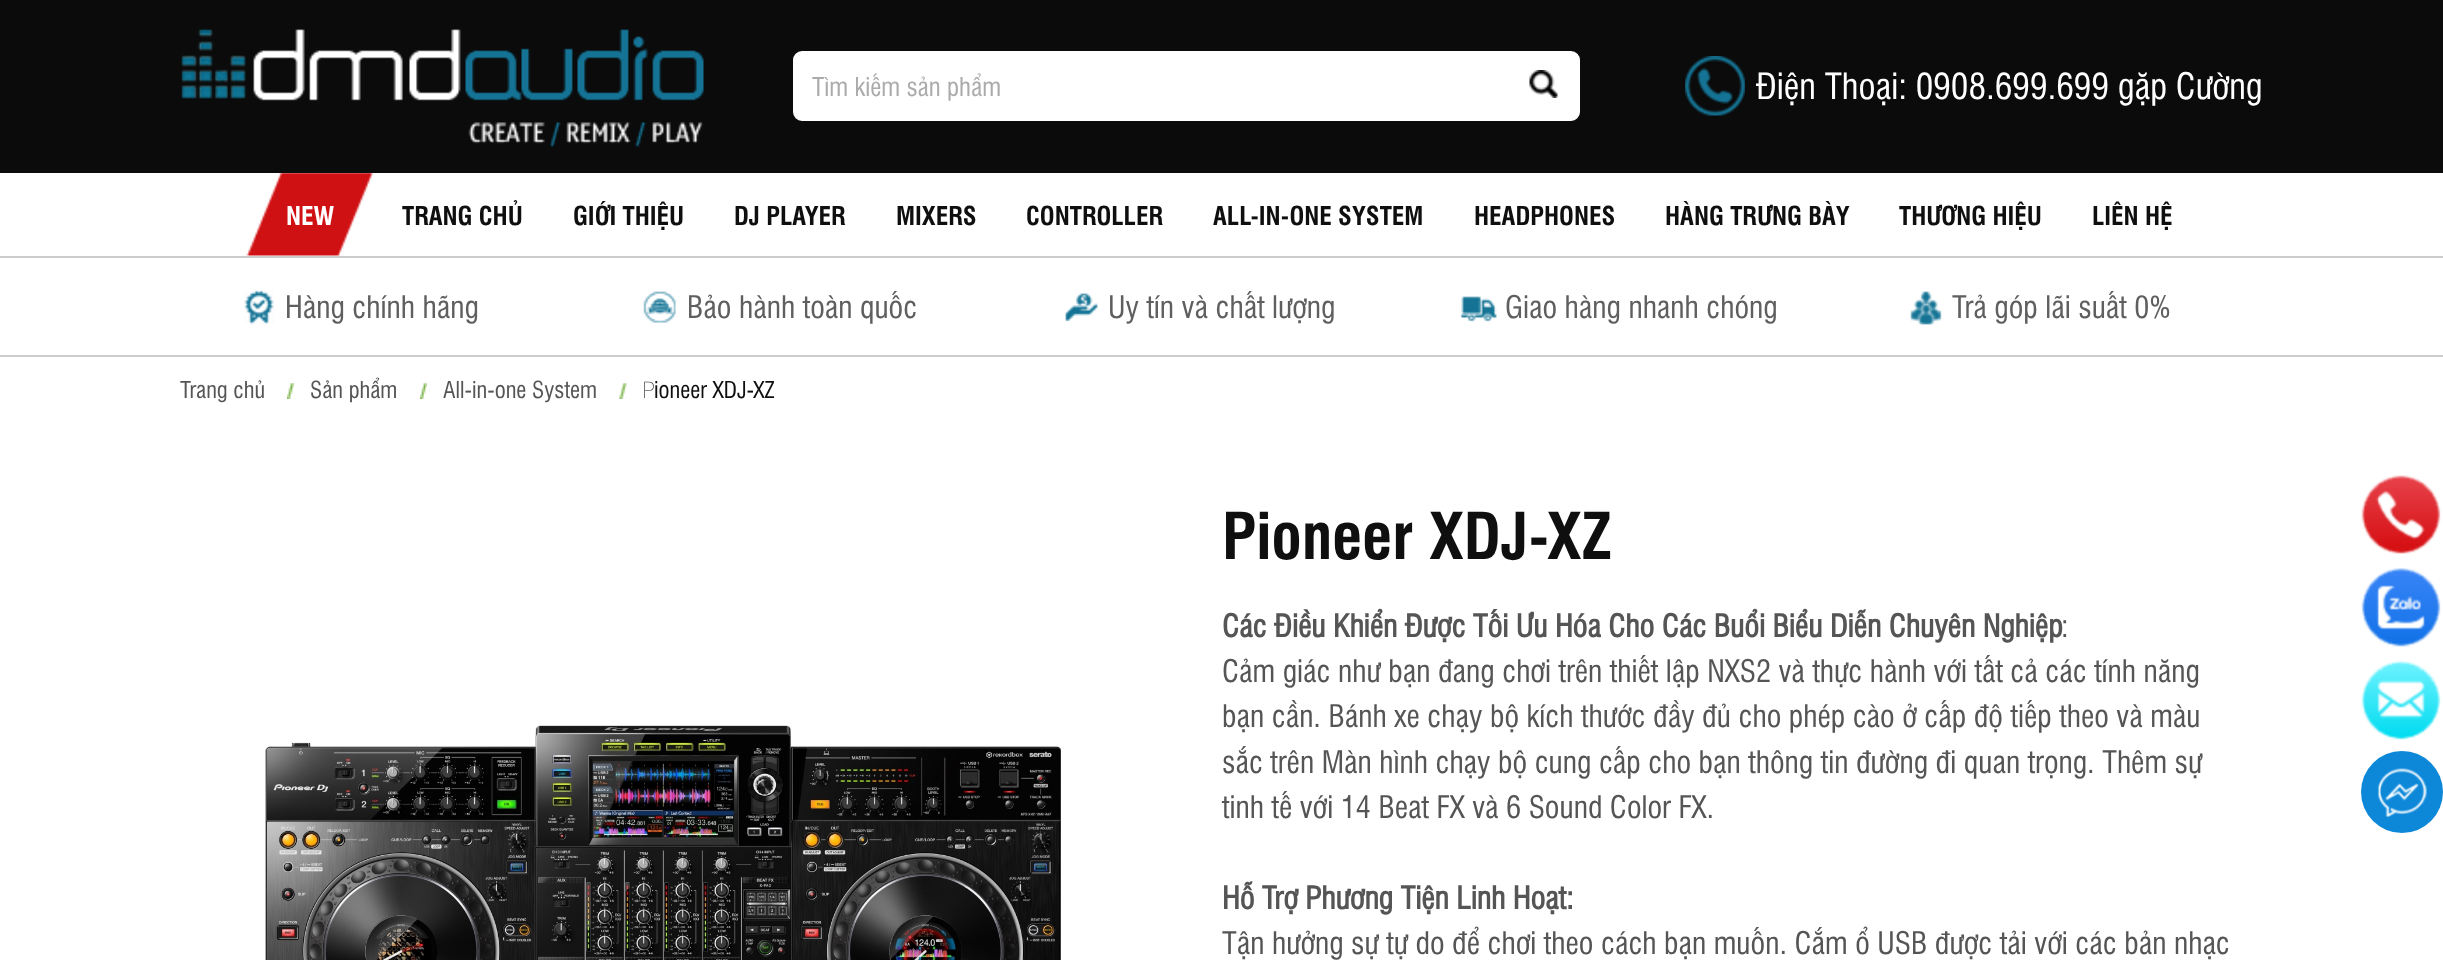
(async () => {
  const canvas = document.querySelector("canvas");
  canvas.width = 2443;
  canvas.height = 960;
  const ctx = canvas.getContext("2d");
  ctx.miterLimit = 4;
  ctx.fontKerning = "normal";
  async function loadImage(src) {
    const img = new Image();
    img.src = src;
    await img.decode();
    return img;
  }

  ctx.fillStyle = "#ffffff";
  ctx.fillRect(0, 0, 2443, 960);
  ctx.fillStyle = "#0b0b0b";
  ctx.fillRect(0, 0, 2443, 173);
  ctx.drawImage(await loadImage("img/1.png"), 181, 29, 523, 118);
  ctx.fillStyle = "#ffffff";
  ctx.beginPath();
  ctx.roundRect(794, 52, 785, 68, 8);
  ctx.fill();
  ctx.strokeStyle = "#ffffff";
  ctx.lineWidth = 2;
  ctx.stroke();
  ctx.drawImage(await loadImage("img/2.png"), 1529, 70, 29, 28);
  ctx.drawImage(await loadImage("img/3.png"), 1685, 56, 60, 60);
  ctx.drawImage(await loadImage("img/4.png"), 246, 173, 127, 83);
  ctx.fillStyle = "#cccccc";
  ctx.fillRect(0, 256, 2443, 2);
  ctx.fillRect(0, 355, 2443, 2);
  ctx.drawImage(await loadImage("img/5.png"), 244, 290, 30, 35);
  ctx.drawImage(await loadImage("img/6.png"), 643, 291, 33, 32);
  ctx.drawImage(await loadImage("img/7.png"), 1065, 293, 33, 29);
  ctx.drawImage(await loadImage("img/8.png"), 1460, 296, 37, 26);
  ctx.drawImage(await loadImage("img/9.png"), 1910, 291, 32, 34);
  ctx.drawImage(await loadImage("img/10.png"), 287, 383, 7, 16);
  ctx.drawImage(await loadImage("img/11.png"), 420, 383, 7, 16);
  ctx.drawImage(await loadImage("img/12.png"), 619, 383, 8, 16);
  ctx.drawImage(await loadImage("img/13.png"), 265, 725, 796, 235);
  ctx.drawImage(await loadImage("img/14.png"), 2361, 475, 80, 79);
  ctx.drawImage(await loadImage("img/15.png"), 2361, 568, 80, 79);
  ctx.drawImage(await loadImage("img/16.png"), 2361, 660, 80, 80);
  ctx.fillStyle = "#0d88d9";
  ctx.beginPath();
  ctx.arc(2402, 792, 41, 0, Math.PI * 2);
  ctx.fill();
  ctx.drawImage(await loadImage("img/17.png"), 2377, 768, 50, 50);
  ctx.font = "25.25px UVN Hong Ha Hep";
  ctx.fillStyle = "#ababab";
  ctx.fillText("Tìm kiếm sản phẩm", 812, 96);
  ctx.font = "35.25px UVN Hong Ha Hep";
  ctx.fillStyle = "#ffffff";
  ctx.fillText("Điện Thoại: 0908.699.699 gặp Cường", 1756, 99);
  ctx.font = "bold 25.25px UVN Hong Ha Hep";
  ctx.fillText("NEW", 286, 225);
  ctx.fillStyle = "#0f0f0f";
  for (const [text, x, y] of [
    ["TRANG CHỦ", 402, 225],
    ["GIỚI THIỆU", 573, 225],
    ["DJ PLAYER", 734, 225],
    ["MIXERS", 896, 225],
    ["CONTROLLER", 1026, 225],
    ["ALL-IN-ONE SYSTEM", 1213, 225],
    ["HEADPHONES", 1474, 225],
    ["HÀNG TRƯNG BÀY", 1665, 225],
    ["THƯƠNG HIỆU", 1899, 225],
    ["LIÊN HỆ", 2092, 225],
  ]) {
    ctx.fillText(text, x, y);
  }
  ctx.font = "30.25px UVN Hong Ha Hep";
  ctx.fillStyle = "#5f5f5f";
  for (const [text, x, y] of [
    ["Hàng chính hãng", 285, 318],
    ["Bảo hành toàn quốc", 687, 318],
    ["Uy tín và chất lượng", 1108, 318],
    ["Giao hàng nhanh chóng", 1505, 318],
    ["Trả góp lãi suất 0%", 1952, 318],
  ]) {
    ctx.fillText(text, x, y);
  }
  ctx.font = "22.75px UVN Hong Ha Hep";
  ctx.fillStyle = "#555555";
  for (const [text, x, y] of [
    ["Trang chủ", 180, 398],
    ["Sản phẩm", 310, 398],
    ["All-in-one System", 443, 398],
  ]) {
    ctx.fillText(text, x, y);
  }
  ctx.font = "100 22.75px Noto Sans";
  ctx.fillStyle = "#0f0f0f";
  ctx.fillText("P", 642, 398);
  ctx.font = "22.75px UVN Hong Ha Hep";
  ctx.fillText("ioneer XDJ-XZ", 654, 398);
  ctx.font = "bold 63px UVN Hong Ha Hep";
  ctx.fillText("Pioneer XDJ-XZ", 1222, 559);
  ctx.font = "bold 30.25px 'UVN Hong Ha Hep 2'";
  ctx.fillStyle = "#555555";
  ctx.fillText("Các Điều Khiển Được Tối Ưu Hóa Cho Các Buổi Biểu Diễn Chuyên Nghiệp", 1222, 637);
  ctx.font = "30.25px UVN Hong Ha Hep";
  for (const [text, x, y] of [
    [":", 2061, 637],
    ["Cảm giác như bạn đang chơi trên thiết lập NXS2 và thực hành với tất cả các tính năng", 1222, 682],
    ["bạn cần. Bánh xe chạy bộ kích thước đầy đủ cho phép cào ở cấp độ tiếp theo và màu", 1222, 727],
    ["sắc trên Màn hình chạy bộ cung cấp cho bạn thông tin đường đi quan trọng. Thêm sự", 1222, 773],
    ["tinh tế với 14 Beat FX và 6 Sound Color FX.", 1222, 818],
  ]) {
    ctx.fillText(text, x, y);
  }
  ctx.font = "bold 30.25px 'UVN Hong Ha Hep 2'";
  ctx.fillText("Hỗ Trợ Phương Tiện Linh Hoạt:", 1222, 909);
  ctx.font = "30.25px UVN Hong Ha Hep";
  ctx.fillText("Tận hưởng sự tự do để chơi theo cách bạn muốn. Cắm ổ USB được tải với các bản nhạc", 1222, 954);
})();
